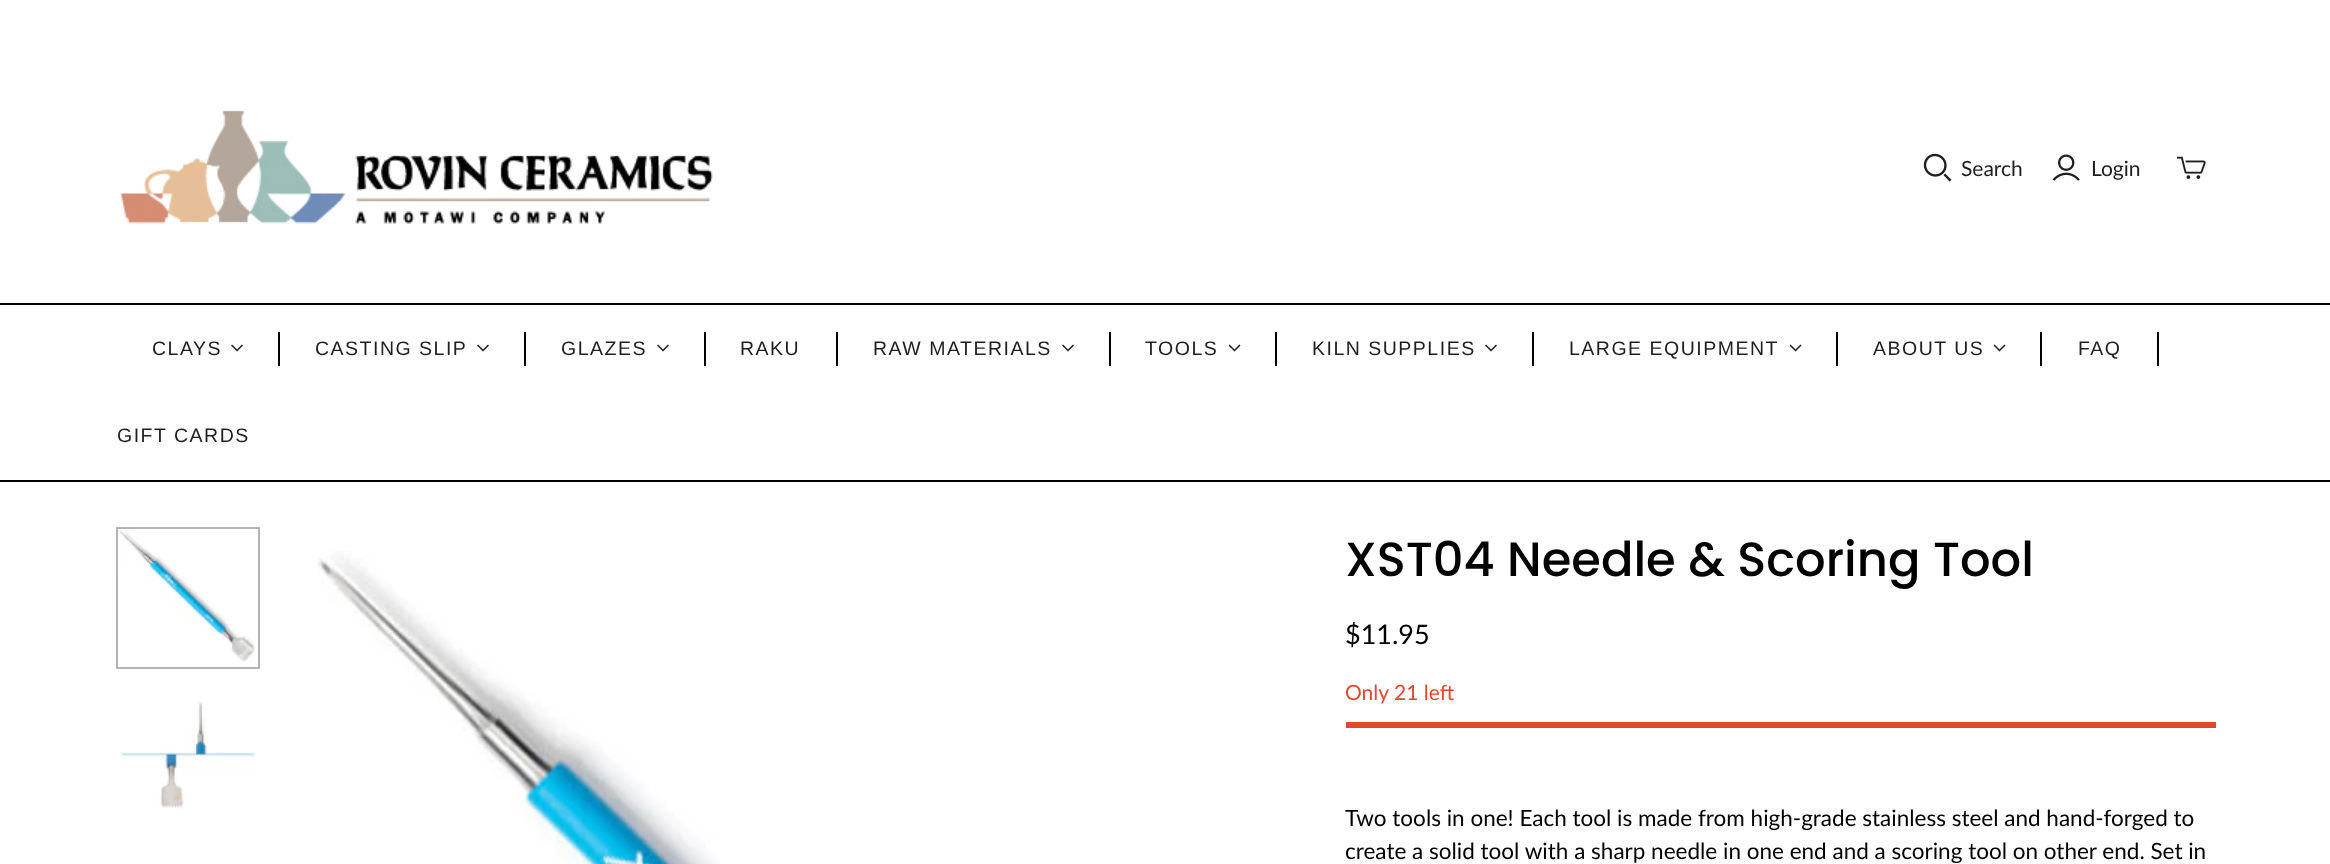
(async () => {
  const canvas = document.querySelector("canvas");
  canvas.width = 2330;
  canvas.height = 864;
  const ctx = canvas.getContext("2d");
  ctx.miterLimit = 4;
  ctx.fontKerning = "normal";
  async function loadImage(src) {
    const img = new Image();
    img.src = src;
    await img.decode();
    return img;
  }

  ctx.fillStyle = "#ffffff";
  ctx.fillRect(0, 0, 2330, 864);
  ctx.drawImage(await loadImage("img/1.png"), 119, 110, 594, 114);
  ctx.drawImage(await loadImage("img/2.png"), 1923, 153, 29, 29);
  ctx.drawImage(await loadImage("img/3.png"), 2052, 154, 28, 27);
  ctx.drawImage(await loadImage("img/4.png"), 2177, 156, 29, 23);
  ctx.fillStyle = "#000000";
  ctx.fillRect(0, 303, 2330, 2);
  ctx.fillRect(0, 480, 2330, 2);
  ctx.drawImage(await loadImage("img/5.png"), 231, 344, 12, 8);
  ctx.fillRect(278, 332, 2, 34);
  ctx.drawImage(await loadImage("img/5.png"), 477, 344, 12, 8);
  ctx.fillRect(524, 332, 2, 34);
  ctx.drawImage(await loadImage("img/5.png"), 657, 344, 12, 8);
  ctx.fillRect(704, 332, 2, 34);
  ctx.fillRect(836, 332, 2, 34);
  ctx.drawImage(await loadImage("img/5.png"), 1062, 344, 12, 8);
  ctx.fillRect(1109, 332, 2, 34);
  ctx.drawImage(await loadImage("img/6.png"), 1229, 344, 12, 8);
  ctx.fillRect(1275, 332, 2, 34);
  ctx.drawImage(await loadImage("img/5.png"), 1485, 344, 12, 8);
  ctx.fillRect(1532, 332, 2, 34);
  ctx.drawImage(await loadImage("img/6.png"), 1790, 344, 12, 8);
  ctx.fillRect(1836, 332, 2, 34);
  ctx.drawImage(await loadImage("img/6.png"), 1994, 344, 12, 8);
  ctx.fillRect(2040, 332, 2, 34);
  ctx.fillRect(2157, 332, 2, 34);
  ctx.drawImage(await loadImage("img/7.png"), 119, 530, 137, 132);
  ctx.strokeStyle = "#b3b3b3";
  ctx.lineWidth = 2;
  ctx.strokeRect(117, 528, 142, 140);
  ctx.drawImage(await loadImage("img/8.png"), 121, 701, 135, 108);
  ctx.drawImage(await loadImage("img/9.png"), 317, 551, 404, 313);
  ctx.fillStyle = "#e2472f";
  ctx.fillRect(1346, 722, 870, 6);
  ctx.font = "21px Lato";
  ctx.fillStyle = "#1e1e1e";
  ctx.fillText("Search", 1961, 176);
  ctx.fillText("Login", 2091, 176);
  ctx.letterSpacing = "1.5px";
  ctx.font = "19.5px Liberation Sans";
  for (const [text, x, y] of [
    ["CLAYS", 152, 355],
    ["CASTING SLIP", 315, 355],
    ["GLAZES", 561, 355],
    ["RAKU", 740, 355],
    ["RAW MATERIALS", 873, 355],
    ["TOOLS", 1145, 355],
    ["KILN SUPPLIES", 1312, 355],
    ["LARGE EQUIPMENT", 1569, 355],
    ["ABOUT US", 1873, 355],
    ["FAQ", 2078, 355],
    ["GIFT CARDS", 117, 442],
  ]) {
    ctx.fillText(text, x, y);
  }
  ctx.letterSpacing = "0px";
  ctx.font = "500 48px Poppins";
  ctx.fillStyle = "#000000";
  ctx.fillText("XST04 Needle & Scoring Tool", 1345, 576);
  ctx.font = "27px Lato";
  ctx.fillText("$11.95", 1345, 644);
  ctx.font = "21px Lato";
  ctx.fillStyle = "#e2472f";
  ctx.fillText("Only 21 left", 1345, 700);
  ctx.font = "22.5px Lato";
  ctx.fillStyle = "#000000";
  ctx.fillText("Two tools in one! Each tool is made from high-grade stainless steel and hand-forged to", 1345, 826);
  ctx.fillText("create a solid tool with a sharp needle in one end and a scoring tool on other end. Set in", 1345, 859);
})();
